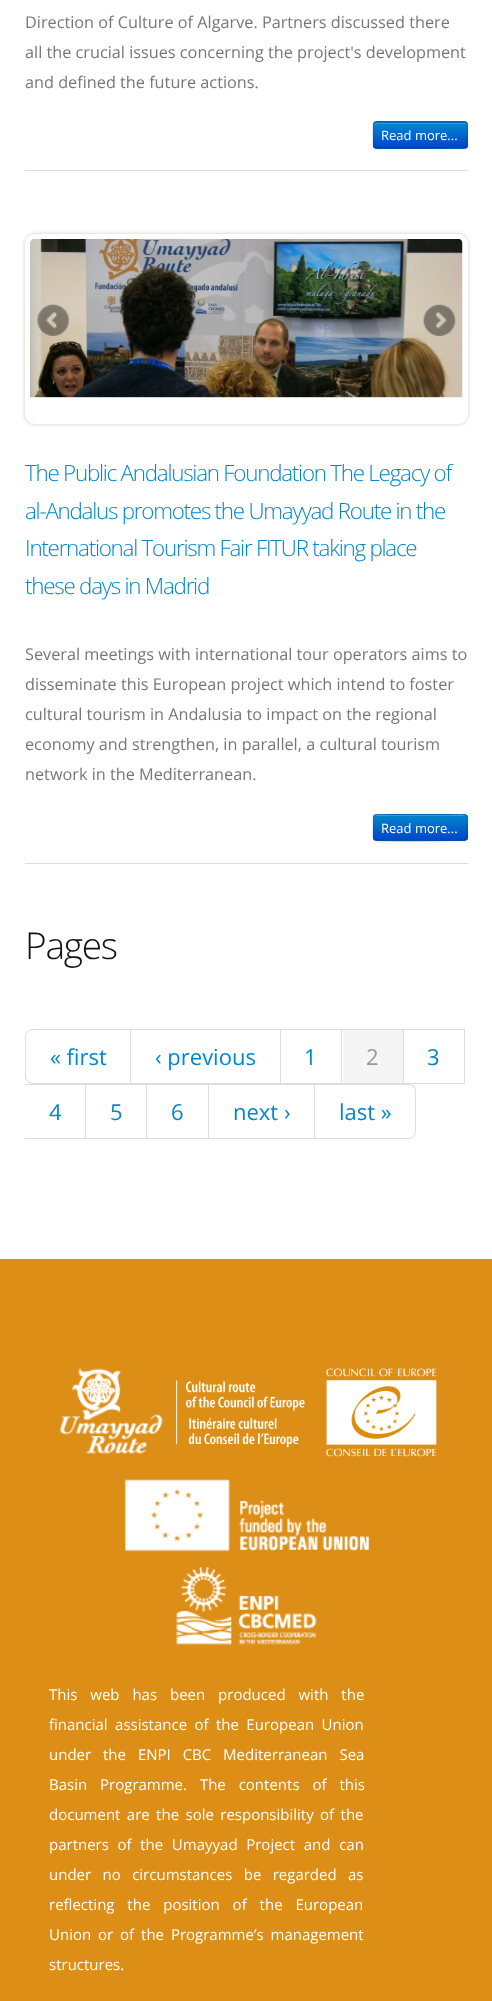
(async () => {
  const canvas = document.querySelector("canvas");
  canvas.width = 492;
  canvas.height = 2001;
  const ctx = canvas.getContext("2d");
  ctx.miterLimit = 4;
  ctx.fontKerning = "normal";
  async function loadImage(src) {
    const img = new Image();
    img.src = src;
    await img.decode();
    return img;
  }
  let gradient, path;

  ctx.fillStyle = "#ffffff";
  ctx.fillRect(0, 0, 492, 2001);
  ctx.fillStyle = "#dddddd";
  ctx.fillRect(25, 170, 443, 1);
  ctx.fillStyle = "rgba(0, 0, 0, 0.05)";
  ctx.filter = "blur(1px)";
  ctx.beginPath();
  ctx.roundRect(373, 123, 95, 27, 4);
  ctx.fill();
  ctx.filter = "none";
  ctx.fillStyle = "#006dcc";
  ctx.beginPath();
  ctx.roundRect(373, 121, 95, 28, 4);
  ctx.fill();
  ctx.save();
  ctx.beginPath();
  ctx.roundRect(373, 121, 95, 28, 4);
  ctx.clip();
  gradient = ctx.createLinearGradient(420, 123, 420, 148);
  gradient.addColorStop(0, "#0088cc");
  gradient.addColorStop(1, "#0044cc");
  ctx.fillStyle = gradient;
  ctx.fillRect(373, 123, 95, 25);
  ctx.restore();
  ctx.fillStyle = "#339fd6";
  path = new Path2D("M376 124H464C465 124 466 125 466 126C466 125 465 123 464 123H376C375 123 374 125 374 126C374 125 375 124 376 124Z");
  ctx.fill(path);
  path = new Path2D("M466 147L464 148H449C441 148 376.5 149 374.5 147.5L374 147");
  ctx.strokeStyle = "rgba(0, 0, 0, 0.25)";
  ctx.lineWidth = 1.2;
  ctx.stroke(path);
  path = new Path2D("M374 147C372 145 373 140.5 373 138.5C373 118.5 370 122 391 122H449C470 122 467 118.5 467 138.5C467 140.5 468 145 466 147");
  ctx.strokeStyle = "rgba(0, 0, 0, 0.1)";
  ctx.stroke(path);
  ctx.fillStyle = "#dddddd";
  ctx.fillRect(25, 863, 443, 1);
  ctx.fillStyle = "rgba(0, 0, 0, 0.2)";
  ctx.filter = "blur(2px)";
  ctx.beginPath();
  ctx.roundRect(25, 234, 443, 190, 10);
  ctx.fill();
  ctx.filter = "none";
  ctx.fillStyle = "#ffffff";
  ctx.beginPath();
  ctx.roundRect(27.5, 236.5, 438, 185, 7.5);
  ctx.fill();
  ctx.strokeStyle = "#ffffff";
  ctx.lineWidth = 5;
  ctx.stroke();
  ctx.drawImage(await loadImage("img/1.png"), 30, 239, 433, 159);
  ctx.drawImage(await loadImage("img/2.png"), 37, 304, 32, 32);
  ctx.drawImage(await loadImage("img/3.png"), 423, 304, 33, 33);
  ctx.fillStyle = "rgba(0, 0, 0, 0.05)";
  ctx.filter = "blur(1px)";
  ctx.beginPath();
  ctx.roundRect(373, 815, 95, 28, 4);
  ctx.fill();
  ctx.filter = "none";
  ctx.fillStyle = "#006dcc";
  ctx.beginPath();
  ctx.roundRect(373, 814, 95, 27, 4);
  ctx.fill();
  ctx.save();
  ctx.beginPath();
  ctx.roundRect(373, 814, 95, 27, 4);
  ctx.clip();
  gradient = ctx.createLinearGradient(420, 815, 420, 840);
  gradient.addColorStop(0, "#0088cc");
  gradient.addColorStop(1, "#0044cc");
  ctx.fillStyle = gradient;
  ctx.fillRect(373, 815, 95, 25);
  ctx.restore();
  ctx.fillStyle = "rgba(255, 255, 255, 0.2)";
  path = new Path2D("M376 816H464C465 816 466 817 466 819C466 811 454 815 449 815H391C386 815 374 811 374 819C374 817 375 816 376 816Z");
  ctx.fill(path);
  path = new Path2D("M466 839.5L464 840.5H449C441 840.5 376.5 841.5 374.5 840L374 839.5");
  ctx.strokeStyle = "rgba(0, 0, 0, 0.25)";
  ctx.lineWidth = 1.2;
  ctx.stroke(path);
  path = new Path2D("M374 839.5C372 837.5 373 833 373 831C373 811 370 814.5 391 814.5H449C470 814.5 467 811 467 831C467 833 468 837.5 466 839.5");
  ctx.strokeStyle = "rgba(0, 0, 0, 0.1)";
  ctx.stroke(path);
  ctx.beginPath();
  ctx.roundRect(25.5, 1029.5, 105, 54, [7.5, 0, 0, 7.5]);
  ctx.strokeStyle = "#dddddd";
  ctx.lineWidth = 1;
  ctx.stroke();
  for (const [x, y, w, h, color] of [
    [131, 1029, 334, 1, "#dddddd"],
    [280, 1029, 1, 55, "#dddddd"],
    [131, 1083, 150, 1, "#dddddd"],
    [341, 1029, 1, 55, "#dddddd"],
    [281, 1083, 62, 1, "#dddddd"],
    [343, 1030, 60, 53, "#f5f5f5"],
    [403, 1029, 1, 55, "#dddddd"],
    [343, 1083, 61, 1, "#dddddd"],
    [464, 1029, 1, 55, "#dddddd"],
    [404, 1083, 61, 1, "#dddddd"],
    [25, 1084, 290, 1, "#dddddd"],
    [85, 1084, 1, 55, "#dddddd"],
    [25, 1138, 61, 1, "#dddddd"],
    [146, 1084, 1, 55, "#dddddd"],
    [86, 1138, 62, 1, "#dddddd"],
    [208, 1084, 1, 55, "#dddddd"],
    [148, 1138, 61, 1, "#dddddd"],
    [314, 1084, 1, 55, "#dddddd"],
    [209, 1138, 106, 1, "#dddddd"],
  ]) {
    ctx.fillStyle = color;
    ctx.fillRect(x, y, w, h);
  }
  path = new Path2D("M315 1084H409C413 1084 416 1087 416 1091V1131C416 1135 413 1139 409 1139H315ZM315 1085H409C412 1085 415 1088 415 1091V1131C415 1135 412 1138 409 1138H315Z");
  ctx.fill(path, "evenodd");
  ctx.fillStyle = "#dc8e17";
  ctx.fillRect(0, 1259, 492, 742);
  ctx.drawImage(await loadImage("img/4.png"), 59, 1368, 104, 86);
  ctx.drawImage(await loadImage("img/5.png"), 176, 1368, 261, 89);
  ctx.drawImage(await loadImage("img/6.png"), 124, 1479, 245, 73);
  ctx.drawImage(await loadImage("img/7.png"), 176, 1567, 141, 78);
  ctx.font = "16.25px Open Sans";
  ctx.fillStyle = "#777777";
  for (const [text, x, y] of [
    ["Direction of Culture of Algarve. Partners discussed there", 25, 28],
    ["all the crucial issues concerning the project's development", 25, 58],
    ["and defined the future actions.", 25, 88],
  ]) {
    ctx.fillText(text, x, y);
  }
  ctx.font = "13px Open Sans";
  ctx.fillStyle = "#ffffff";
  ctx.fillText("Read more...", 381, 140);
  ctx.letterSpacing = "-1.25px";
  ctx.font = "300 22.4px Open Sans";
  ctx.fillStyle = "#0088cc";
  for (const [text, x, y] of [
    ["The Public Andalusian Foundation The Legacy of", 25, 481],
    ["al-Andalus promotes the Umayyad Route in the", 25, 519],
    ["International Tourism Fair FITUR taking place", 25, 556],
    ["these days in Madrid", 25, 594],
  ]) {
    ctx.fillText(text, x, y);
  }
  ctx.letterSpacing = "0px";
  ctx.font = "16.25px Open Sans";
  ctx.fillStyle = "#777777";
  for (const [text, x, y] of [
    ["Several meetings with international tour operators aims to", 25, 660],
    ["disseminate this European project which intend to foster", 25, 690],
    ["cultural tourism in Andalusia to impact on the regional", 25, 720],
    ["economy and strengthen, in parallel, a cultural tourism", 25, 750],
    ["network in the Mediterranean.", 25, 780],
  ]) {
    ctx.fillText(text, x, y);
  }
  ctx.font = "13px Open Sans";
  ctx.fillStyle = "#ffffff";
  ctx.fillText("Read more...", 381, 833);
  ctx.letterSpacing = "-1.25px";
  ctx.font = "300 37px Open Sans";
  ctx.fillStyle = "#121214";
  ctx.fillText("Pages", 25, 959);
  ctx.letterSpacing = "0px";
  ctx.font = "22px Open Sans";
  ctx.fillStyle = "#0088cc";
  for (const [text, x, y] of [
    ["« first", 50, 1065],
    ["‹ previous", 155, 1065],
    ["1", 304, 1065],
  ]) {
    ctx.fillText(text, x, y);
  }
  ctx.fillStyle = "#999999";
  ctx.fillText("2", 366, 1065);
  ctx.fillStyle = "#0088cc";
  for (const [text, x, y] of [
    ["3", 427, 1065],
    ["4", 49, 1120],
    ["5", 110, 1120],
    ["6", 171, 1120],
    ["next ›", 233, 1120],
    ["last »", 339, 1120],
  ]) {
    ctx.fillText(text, x, y);
  }
  ctx.wordSpacing = "9px";
  ctx.font = "15px Open Sans";
  ctx.fillStyle = "#ffffff";
  ctx.fillText("This web has been produced with the", 49, 1700);
  ctx.wordSpacing = "3.5px";
  ctx.fillText("financial assistance of the European Union", 49, 1730);
  ctx.wordSpacing = "8px";
  ctx.fillText("under the ENPI CBC Mediterranean Sea", 49, 1760);
  ctx.wordSpacing = "9px";
  ctx.fillText("Basin Programme. The contents of this", 49, 1790);
  ctx.wordSpacing = "2.5px";
  ctx.fillText("document are the sole responsibility of the", 49, 1820);
  ctx.wordSpacing = "4.75px";
  ctx.fillText("partners of the Umayyad Project and can", 49, 1850);
  ctx.wordSpacing = "7.5px";
  ctx.fillText("under no circumstances be regarded as", 49, 1880);
  ctx.wordSpacing = "9px";
  ctx.fillText("reflecting the position of the European", 49, 1910);
  ctx.wordSpacing = "3px";
  ctx.fillText("Union or of the Programme’s management", 49, 1940);
  ctx.wordSpacing = "0px";
  ctx.fillText("structures.", 49, 1970);
})();
